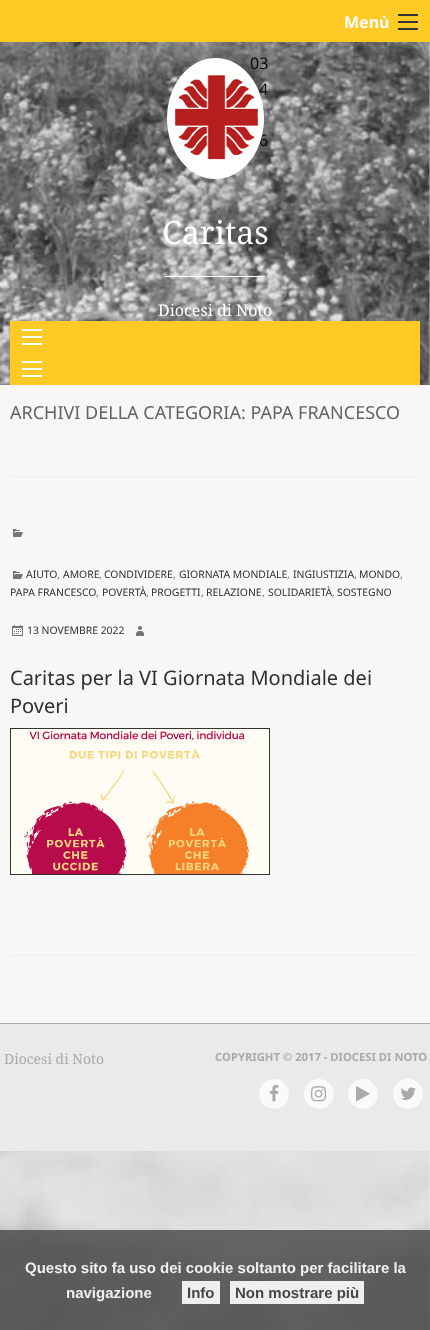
(async () => {
  const canvas = document.querySelector("canvas");
  canvas.width = 430;
  canvas.height = 1330;
  const ctx = canvas.getContext("2d");
  ctx.miterLimit = 4;
  ctx.fontKerning = "normal";
  async function loadImage(src) {
    const img = new Image();
    img.src = src;
    await img.decode();
    return img;
  }

  ctx.fillStyle = "#f9f9f9";
  ctx.fillRect(0, 0, 430, 1330);
  ctx.drawImage(await loadImage("img/1.png"), 0, 42, 430, 1288);
  for (const [x, y, w, h, color] of [
    [0, 0, 430, 42, "#ffca26"],
    [398, 28, 20, 2, "#333333"],
    [398, 21, 20, 2, "#333333"],
    [398, 14, 20, 2, "#333333"],
    [165, 276, 100, 1, "#ffffff"],
    [10, 321, 410, 64, "#ffca26"],
    [22, 343, 20, 2, "#fefefe"],
    [22, 336, 20, 2, "#fefefe"],
    [22, 329, 20, 2, "#fefefe"],
    [22, 375, 20, 2, "#fefefe"],
    [22, 368, 20, 2, "#fefefe"],
    [22, 361, 20, 2, "#fefefe"],
    [0, 385, 430, 638, "#f7f7f7"],
    [10, 476, 410, 1, "#ededed"],
    [10, 955, 410, 1, "#ededed"],
  ]) {
    ctx.fillStyle = color;
    ctx.fillRect(x, y, w, h);
  }
  ctx.drawImage(await loadImage("img/3.png"), 13, 529, 10, 8);
  ctx.drawImage(await loadImage("img/3.png"), 13, 571, 10, 8);
  ctx.drawImage(await loadImage("img/4.png"), 12, 625, 11, 11);
  ctx.drawImage(await loadImage("img/5.png"), 136, 626, 8, 10);
  ctx.drawImage(await loadImage("img/6.png"), 11, 729, 258, 145);
  ctx.strokeStyle = "#333333";
  ctx.strokeRect(10.5, 728.5, 259, 146);
  ctx.fillStyle = "#eaeaea";
  ctx.fillRect(0, 1024, 430, 127);
  ctx.fillStyle = "#aaaaaa";
  ctx.fillRect(0, 1023, 430, 1);
  ctx.fillStyle = "#fafafa";
  ctx.beginPath();
  ctx.arc(274, 1094, 15, 0, Math.PI * 2);
  ctx.fill();
  ctx.drawImage(await loadImage("img/7.png"), 269, 1084, 10, 18);
  ctx.beginPath();
  ctx.arc(319, 1094, 15, 0, Math.PI * 2);
  ctx.fill();
  ctx.drawImage(await loadImage("img/8.png"), 311, 1086, 16, 16);
  ctx.beginPath();
  ctx.arc(363, 1094, 15, 0, Math.PI * 2);
  ctx.fill();
  ctx.drawImage(await loadImage("img/9.png"), 356, 1086, 14, 16);
  ctx.beginPath();
  ctx.arc(408, 1094, 15, 0, Math.PI * 2);
  ctx.fill();
  ctx.drawImage(await loadImage("img/10.png"), 400, 1087, 16, 13);
  for (const [x, y, w, h, color] of [
    [0, 1230, 430, 100, "rgba(85, 85, 85, 0.9)"],
    [182, 1281, 38, 23, "#efefef"],
    [230, 1281, 134, 23, "rgba(255, 255, 255, 0.9)"],
  ]) {
    ctx.fillStyle = color;
    ctx.fillRect(x, y, w, h);
  }
  ctx.font = "bold 16px Noto Sans";
  ctx.fillStyle = "#ffffff";
  ctx.fillText("Menù", 344, 28);
  ctx.font = "16px Noto Sans";
  ctx.fillStyle = "#0a0a0a";
  for (const [text, x, y] of [
    ["03", 250, 69],
    ["4", 259, 95],
    ["6", 259, 146],
  ]) {
    ctx.fillText(text, x, y);
  }
  ctx.drawImage(await loadImage("img/2.png"), 167, 58, 97, 121);
  ctx.font = "32px Noto Serif";
  ctx.fillStyle = "#ffffff";
  ctx.fillText("Caritas", 162, 244);
  ctx.font = "16px Noto Serif";
  ctx.fillText("Diocesi di Noto", 158, 316);
  ctx.font = "18px Noto Sans";
  ctx.fillStyle = "#636363";
  ctx.fillText("ARCHIVI DELLA CATEGORIA: PAPA FRANCESCO", 10, 419);
  ctx.font = "10.4px Noto Sans";
  ctx.fillStyle = "#303030";
  ctx.fillText("AIUTO", 26, 578);
  ctx.fillStyle = "#757575";
  ctx.fillText(",", 57, 578);
  ctx.fillStyle = "#303030";
  ctx.fillText("AMORE", 63, 578);
  ctx.fillStyle = "#757575";
  ctx.fillText(",", 99, 578);
  ctx.fillStyle = "#303030";
  ctx.fillText("CONDIVIDERE", 104, 578);
  ctx.fillStyle = "#757575";
  ctx.fillText(",", 173, 578);
  ctx.fillStyle = "#303030";
  ctx.fillText("GIORNATA MONDIALE", 179, 578);
  ctx.fillStyle = "#757575";
  ctx.fillText(",", 287, 578);
  ctx.fillStyle = "#303030";
  ctx.fillText("INGIUSTIZIA", 293, 578);
  ctx.fillStyle = "#757575";
  ctx.fillText(",", 354, 578);
  ctx.fillStyle = "#303030";
  ctx.fillText("MONDO", 359, 578);
  ctx.fillStyle = "#757575";
  ctx.fillText(",", 400, 578);
  ctx.fillStyle = "#303030";
  ctx.fillText("PAPA FRANCESCO", 10, 596);
  ctx.fillStyle = "#757575";
  ctx.fillText(",", 96, 596);
  ctx.fillStyle = "#303030";
  ctx.fillText("POVERTÀ", 102, 596);
  ctx.fillStyle = "#757575";
  ctx.fillText(",", 146, 596);
  ctx.fillStyle = "#303030";
  ctx.fillText("PROGETTI", 151, 596);
  ctx.fillStyle = "#757575";
  ctx.fillText(",", 201, 596);
  ctx.fillStyle = "#303030";
  ctx.fillText("RELAZIONE", 206, 596);
  ctx.fillStyle = "#757575";
  ctx.fillText(",", 262, 596);
  ctx.fillStyle = "#303030";
  ctx.fillText("SOLIDARIETÀ", 268, 596);
  ctx.fillStyle = "#757575";
  ctx.fillText(",", 332, 596);
  ctx.fillStyle = "#303030";
  ctx.fillText("SOSTEGNO", 337, 596);
  ctx.fillText("13 NOVEMBRE 2022", 27, 634);
  ctx.font = "20px Noto Sans";
  ctx.fillText("Caritas per la VI Giornata Mondiale dei", 10, 685);
  ctx.fillText("Poveri", 10, 713);
  ctx.font = "14px Noto Serif";
  ctx.fillStyle = "#aaaaaa";
  ctx.fillText("Diocesi di Noto", 4, 1064);
  ctx.font = "bold 11.25px Noto Sans";
  ctx.fillText("COPYRIGHT © 2017 - DIOCESI DI NOTO", 215, 1061);
  ctx.font = "bold 15px Liberation Sans";
  ctx.fillStyle = "#efefef";
  ctx.fillText("Questo sito fa uso dei cookie soltanto per facilitare la", 25, 1273);
  ctx.fillText("navigazione", 66, 1298);
  ctx.fillStyle = "#464646";
  ctx.fillText("Info", 187, 1298);
  ctx.fillText("Non mostrare più", 235, 1298);
})();
